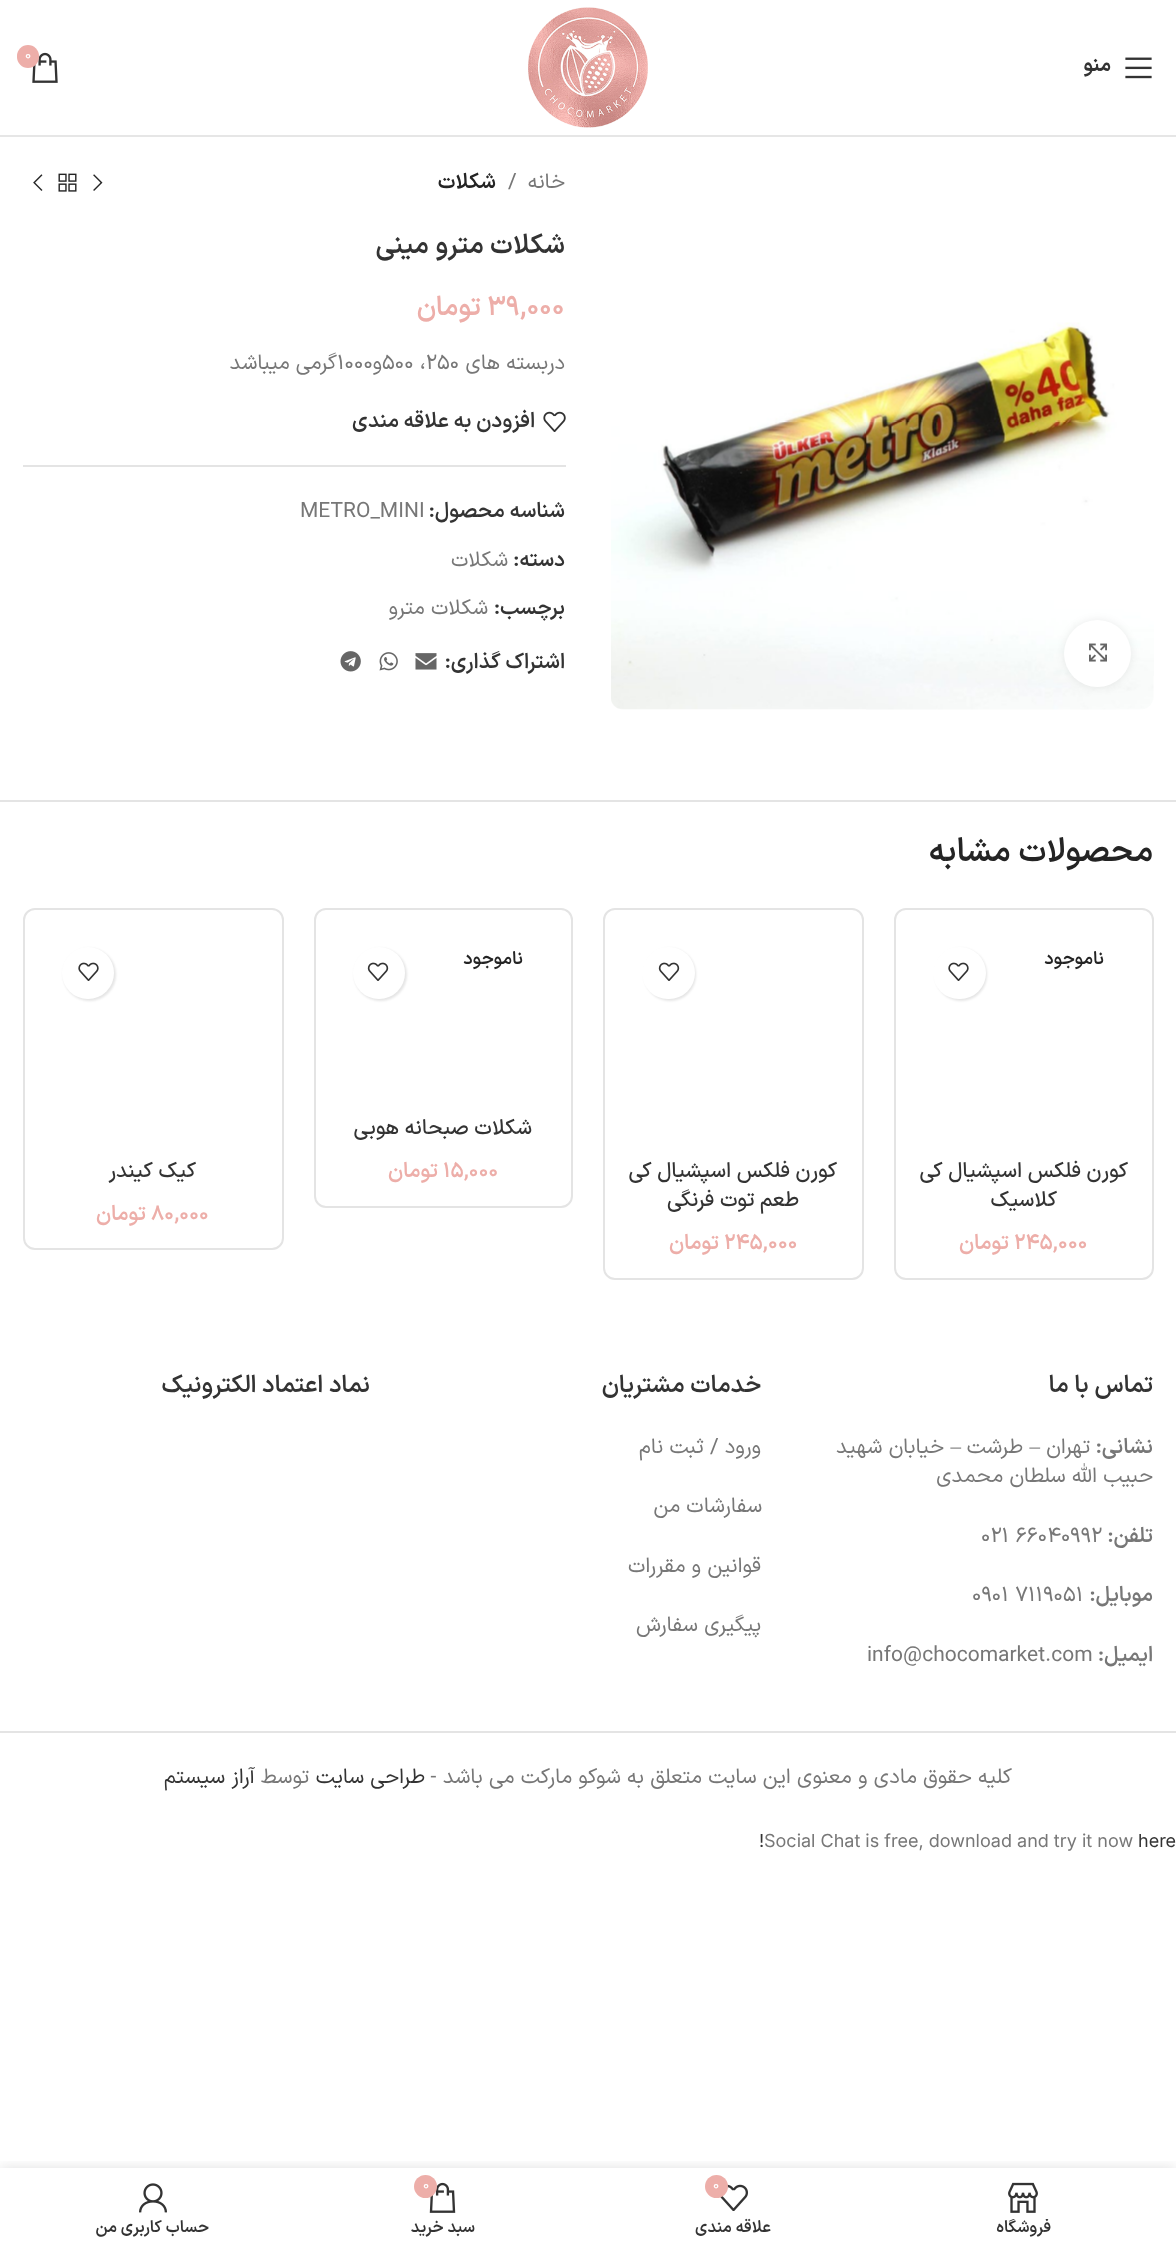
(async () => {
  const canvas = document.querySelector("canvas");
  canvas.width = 1176;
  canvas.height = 2250;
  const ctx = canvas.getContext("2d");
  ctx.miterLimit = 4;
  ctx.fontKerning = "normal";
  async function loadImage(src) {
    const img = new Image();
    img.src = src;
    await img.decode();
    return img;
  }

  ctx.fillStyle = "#ffffff";
  ctx.fillRect(0, 0, 1176, 2250);
  ctx.fillStyle = "#e6e6e6";
  ctx.fillRect(0, 135, 1176, 2);
  ctx.drawImage(await loadImage("img/1.png"), 528, 7, 120, 121);
  ctx.drawImage(await loadImage("img/2.png"), 32, 52, 26, 31);
  ctx.fillStyle = "#edaea9";
  ctx.beginPath();
  ctx.roundRect(17, 45, 22, 23, 11);
  ctx.fill();
  ctx.drawImage(await loadImage("img/3.png"), 1125, 57, 27, 22);
  ctx.drawImage(await loadImage("img/4.png"), 611, 322, 543, 388);
  ctx.fillStyle = "rgba(0, 0, 0, 0.08)";
  ctx.filter = "blur(4px)";
  ctx.beginPath();
  ctx.roundRect(1064, 620, 67, 67, 33.5);
  ctx.fill();
  ctx.filter = "none";
  ctx.fillStyle = "#ffffff";
  ctx.beginPath();
  ctx.arc(1097.5, 653.5, 33.5, 0, Math.PI * 2);
  ctx.fill();
  ctx.drawImage(await loadImage("img/5.png"), 1089, 643, 18, 19);
  ctx.drawImage(await loadImage("img/6.png"), 93, 174, 10, 17);
  ctx.drawImage(await loadImage("img/7.png"), 58, 173, 19, 19);
  ctx.drawImage(await loadImage("img/8.png"), 33, 174, 10, 17);
  ctx.drawImage(await loadImage("img/9.png"), 543, 411, 23, 21);
  ctx.fillStyle = "#e4e4e4";
  ctx.fillRect(23, 465, 543, 2);
  ctx.drawImage(await loadImage("img/10.png"), 415, 653, 22, 17);
  ctx.drawImage(await loadImage("img/11.png"), 379, 652, 19, 19);
  ctx.drawImage(await loadImage("img/12.png"), 340, 651, 21, 21);
  ctx.fillRect(0, 800, 1176, 2);
  ctx.beginPath();
  ctx.roundRect(895, 909, 258, 370, 11);
  ctx.strokeStyle = "#e4e4e4";
  ctx.lineWidth = 2;
  ctx.stroke();
  ctx.fillStyle = "rgba(0, 0, 0, 0.1)";
  ctx.filter = "blur(1px)";
  ctx.beginPath();
  ctx.roundRect(935, 948, 52, 53, 26);
  ctx.fill();
  ctx.filter = "none";
  ctx.fillStyle = "#ffffff";
  ctx.beginPath();
  ctx.roundRect(933, 947, 53, 52, 26);
  ctx.fill();
  ctx.drawImage(await loadImage("img/13.png"), 948, 962, 21, 19);
  ctx.beginPath();
  ctx.roundRect(604, 909, 259, 370, 11);
  ctx.stroke();
  ctx.fillStyle = "rgba(0, 0, 0, 0.1)";
  ctx.filter = "blur(1px)";
  ctx.beginPath();
  ctx.roundRect(644, 948, 52, 53, 26);
  ctx.fill();
  ctx.filter = "none";
  ctx.fillStyle = "#ffffff";
  ctx.beginPath();
  ctx.roundRect(642, 947, 53, 52, 26);
  ctx.fill();
  ctx.drawImage(await loadImage("img/14.png"), 658, 962, 22, 19);
  ctx.beginPath();
  ctx.roundRect(315, 909, 257, 298, 11);
  ctx.stroke();
  ctx.fillStyle = "rgba(0, 0, 0, 0.1)";
  ctx.filter = "blur(1px)";
  ctx.beginPath();
  ctx.roundRect(354, 948, 53, 53, 26.5);
  ctx.fill();
  ctx.filter = "none";
  ctx.fillStyle = "#ffffff";
  ctx.beginPath();
  ctx.arc(379, 973, 26, 0, Math.PI * 2);
  ctx.fill();
  ctx.drawImage(await loadImage("img/14.png"), 367, 962, 22, 19);
  ctx.beginPath();
  ctx.roundRect(24, 909, 259, 340, 11);
  ctx.stroke();
  ctx.fillStyle = "rgba(0, 0, 0, 0.1)";
  ctx.filter = "blur(1px)";
  ctx.beginPath();
  ctx.roundRect(63, 948, 53, 53, 26.5);
  ctx.fill();
  ctx.filter = "none";
  ctx.fillStyle = "#ffffff";
  ctx.beginPath();
  ctx.arc(88, 973, 26, 0, Math.PI * 2);
  ctx.fill();
  ctx.drawImage(await loadImage("img/13.png"), 78, 962, 21, 19);
  ctx.fillStyle = "#e4e4e4";
  ctx.fillRect(0, 1731, 1176, 2);
  ctx.save();
  ctx.beginPath();
  ctx.rect(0, 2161, 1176, 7);
  ctx.clip();
  ctx.fillStyle = "rgba(0, 0, 0, 0.12)";
  ctx.filter = "blur(7px)";
  ctx.beginPath();
  ctx.rect(0, 2168, 1176, 82);
  ctx.fill();
  ctx.filter = "none";
  ctx.restore();
  ctx.drawImage(await loadImage("img/15.png"), 1008, 2182, 30, 31);
  ctx.drawImage(await loadImage("img/16.png"), 720, 2184, 28, 27);
  ctx.fillStyle = "#edaea9";
  ctx.beginPath();
  ctx.arc(716.5, 2186.5, 11.5, 0, Math.PI * 2);
  ctx.fill();
  ctx.drawImage(await loadImage("img/17.png"), 429, 2182, 27, 31);
  ctx.beginPath();
  ctx.arc(425.5, 2186.5, 11.5, 0, Math.PI * 2);
  ctx.fill();
  ctx.drawImage(await loadImage("img/18.png"), 139, 2183, 28, 30);
  ctx.font = "14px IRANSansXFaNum";
  ctx.fillStyle = "#ffffff";
  ctx.fillText("0", 25, 59);
  ctx.direction = "rtl";
  ctx.font = "bold 20px IRANSansXFaNum";
  ctx.fillStyle = "#333333";
  ctx.fillText("منو", 1111, 71);
  ctx.font = "21px IRANSansXFaNum";
  ctx.fillStyle = "#777777";
  ctx.fillText("خانه", 565, 188);
  ctx.direction = "ltr";
  ctx.fillText("/", 508, 188);
  ctx.direction = "rtl";
  ctx.font = "600 21px IRANSansXFaNum";
  ctx.fillStyle = "#242424";
  ctx.fillText("شکلات", 496, 188);
  ctx.font = "600 27px IRANSansXFaNum";
  ctx.fillStyle = "#333333";
  ctx.fillText("شکلات مترو مینی", 565, 253);
  ctx.direction = "ltr";
  ctx.fillStyle = "#edaea9";
  ctx.fillText("39,000", 487, 315);
  ctx.direction = "rtl";
  ctx.fillText("تومان", 481, 315);
  ctx.font = "21px IRANSansXFaNum";
  ctx.fillStyle = "#777777";
  ctx.fillText("دربسته های", 565, 369);
  ctx.direction = "ltr";
  ctx.fillText("500 ،250", 382, 369);
  ctx.direction = "rtl";
  ctx.fillText("و", 382, 369);
  ctx.direction = "ltr";
  ctx.fillText("1000", 337, 369);
  ctx.direction = "rtl";
  ctx.fillText("گرمی میباشد", 337, 369);
  ctx.font = "600 21px IRANSansXFaNum";
  ctx.fillStyle = "#333333";
  ctx.fillText("افزودن به علاقه مندی", 535, 427);
  ctx.fillText("شناسه محصول:", 565, 517);
  ctx.direction = "ltr";
  ctx.font = "21px IRANSansXFaNum";
  ctx.fillStyle = "#777777";
  ctx.fillText("METRO_MINI", 300, 517);
  ctx.direction = "rtl";
  ctx.font = "600 21px IRANSansXFaNum";
  ctx.fillStyle = "#333333";
  ctx.fillText("دسته:", 565, 566);
  ctx.font = "21px IRANSansXFaNum";
  ctx.fillStyle = "#777777";
  ctx.fillText("شکلات", 508, 566);
  ctx.font = "600 21px IRANSansXFaNum";
  ctx.fillStyle = "#333333";
  ctx.fillText("برچسب:", 565, 614);
  ctx.font = "21px IRANSansXFaNum";
  ctx.fillStyle = "#777777";
  ctx.fillText("شکلات مترو", 488, 614);
  ctx.font = "600 21px IRANSansXFaNum";
  ctx.fillStyle = "#333333";
  ctx.fillText("اشتراک گذاری:", 565, 668);
  ctx.font = "600 33px IRANSansXFaNum";
  ctx.fillStyle = "#242424";
  ctx.fillText("محصولات مشابه", 1153, 861);
  ctx.font = "600 18px IRANSansXFaNum";
  ctx.fillText("ناموجود", 1104, 964);
  ctx.font = "500 21px IRANSansXFaNum";
  ctx.fillStyle = "#333333";
  ctx.fillText("کورن فلکس اسپشیال کی", 1128, 1177);
  ctx.fillText("کلاسیک", 1057, 1206);
  ctx.direction = "ltr";
  ctx.font = "600 21px IRANSansXFaNum";
  ctx.fillStyle = "#edaea9";
  ctx.fillText("245,000", 1014, 1249);
  ctx.direction = "rtl";
  ctx.fillText("تومان", 1009, 1249);
  ctx.font = "500 21px IRANSansXFaNum";
  ctx.fillStyle = "#333333";
  ctx.fillText("کورن فلکس اسپشیال کی", 837, 1177);
  ctx.fillText("طعم توت فرنگی", 799, 1206);
  ctx.direction = "ltr";
  ctx.font = "600 21px IRANSansXFaNum";
  ctx.fillStyle = "#edaea9";
  ctx.fillText("245,000", 724, 1249);
  ctx.direction = "rtl";
  ctx.fillText("تومان", 719, 1249);
  ctx.font = "600 18px IRANSansXFaNum";
  ctx.fillStyle = "#242424";
  ctx.fillText("ناموجود", 523, 964);
  ctx.font = "500 21px IRANSansXFaNum";
  ctx.fillStyle = "#333333";
  ctx.fillText("شکلات صبحانه هوبی", 532, 1134);
  ctx.direction = "ltr";
  ctx.font = "600 21px IRANSansXFaNum";
  ctx.fillStyle = "#edaea9";
  ctx.fillText("15,000", 443, 1177);
  ctx.direction = "rtl";
  ctx.fillText("تومان", 438, 1177);
  ctx.font = "500 21px IRANSansXFaNum";
  ctx.fillStyle = "#333333";
  ctx.fillText("کیک کیندر", 196, 1177);
  ctx.direction = "ltr";
  ctx.font = "600 21px IRANSansXFaNum";
  ctx.fillStyle = "#edaea9";
  ctx.fillText("80,000", 151, 1220);
  ctx.direction = "rtl";
  ctx.fillText("تومان", 146, 1220);
  ctx.font = "600 24px IRANSansXFaNum";
  ctx.fillStyle = "#333333";
  ctx.fillText("تماس با ما", 1153, 1392);
  ctx.font = "600 21px IRANSansXFaNum";
  ctx.fillStyle = "#777777";
  ctx.fillText("نشانی:", 1153, 1453);
  ctx.font = "21px IRANSansXFaNum";
  ctx.fillText("تهران", 1090, 1453);
  ctx.font = "21px Liberation Serif";
  ctx.fillText("–", 1040, 1453);
  ctx.font = "21px IRANSansXFaNum";
  ctx.fillText("طرشت", 1023, 1453);
  ctx.font = "21px Liberation Serif";
  ctx.fillText("–", 961, 1453);
  ctx.font = "21px IRANSansXFaNum";
  ctx.fillText("خيابان شهيد", 944, 1453);
  ctx.fillText("حبيب الله سلطان محمدی", 1153, 1482);
  ctx.font = "600 21px IRANSansXFaNum";
  ctx.fillText("تلفن:", 1153, 1542);
  ctx.direction = "ltr";
  ctx.font = "21px IRANSansXFaNum";
  ctx.fillText("021 66040992", 981, 1542);
  ctx.direction = "rtl";
  ctx.font = "600 21px IRANSansXFaNum";
  ctx.fillText("موبایل:", 1153, 1601);
  ctx.direction = "ltr";
  ctx.font = "21px IRANSansXFaNum";
  ctx.fillText("0901 7119051", 972, 1601);
  ctx.direction = "rtl";
  ctx.font = "600 21px IRANSansXFaNum";
  ctx.fillText("ایمیل:", 1153, 1661);
  ctx.direction = "ltr";
  ctx.font = "21px IRANSansXFaNum";
  ctx.fillText("info@chocomarket.com", 867, 1661);
  ctx.direction = "rtl";
  ctx.font = "600 24px IRANSansXFaNum";
  ctx.fillStyle = "#333333";
  ctx.fillText("خدمات مشتریان", 761, 1392);
  ctx.font = "21px IRANSansXFaNum";
  ctx.fillStyle = "#777777";
  for (const [text, x, y] of [
    ["ورود / ثبت نام", 761, 1453],
    ["سفارشات من", 762, 1512],
    ["قوانین و مقررات", 761, 1572],
    ["پیگیری سفارش", 761, 1631],
  ]) {
    ctx.fillText(text, x, y);
  }
  ctx.font = "600 24px IRANSansXFaNum";
  ctx.fillStyle = "#333333";
  ctx.fillText("نماد اعتماد الکترونیک", 370, 1392);
  ctx.font = "21px IRANSansXFaNum";
  ctx.fillStyle = "#777777";
  ctx.fillText("کلیه حقوق مادی و معنوی این سایت متعلق به شوکو مارکت می باشد -", 1012, 1783);
  ctx.fillStyle = "#333333";
  ctx.fillText("طراحی سایت", 425, 1783);
  ctx.fillStyle = "#777777";
  ctx.fillText("توسط", 309, 1783);
  ctx.fillStyle = "#333333";
  ctx.fillText("آراز سیستم", 255, 1783);
  ctx.direction = "ltr";
  ctx.font = "18px Inter";
  ctx.fillText("here", 1138, 1847);
  ctx.fillStyle = "#777777";
  ctx.fillText("Social Chat is free, download and try it now", 764, 1847);
  ctx.fillStyle = "#333333";
  ctx.fillText("!", 759, 1847);
  ctx.save();
  ctx.beginPath();
  ctx.rect(894, 2219, 260, 19);
  ctx.clip();
  ctx.direction = "rtl";
  ctx.font = "600 16.5px IRANSansXFaNum";
  ctx.fillText("فروشگاه", 1051, 2232);
  ctx.restore();
  ctx.font = "14px IRANSansXFaNum";
  ctx.fillStyle = "#ffffff";
  ctx.fillText("0", 713, 2189);
  ctx.direction = "rtl";
  ctx.font = "600 16.5px IRANSansXFaNum";
  ctx.fillStyle = "#333333";
  ctx.fillText("علاقه مندی", 771, 2232);
  ctx.direction = "ltr";
  ctx.font = "14px IRANSansXFaNum";
  ctx.fillStyle = "#ffffff";
  ctx.fillText("0", 423, 2189);
  ctx.direction = "rtl";
  ctx.font = "600 16.5px IRANSansXFaNum";
  ctx.fillStyle = "#333333";
  ctx.fillText("سبد خرید", 475, 2232);
  ctx.fillText("حساب کاربری من", 209, 2232);
})();
